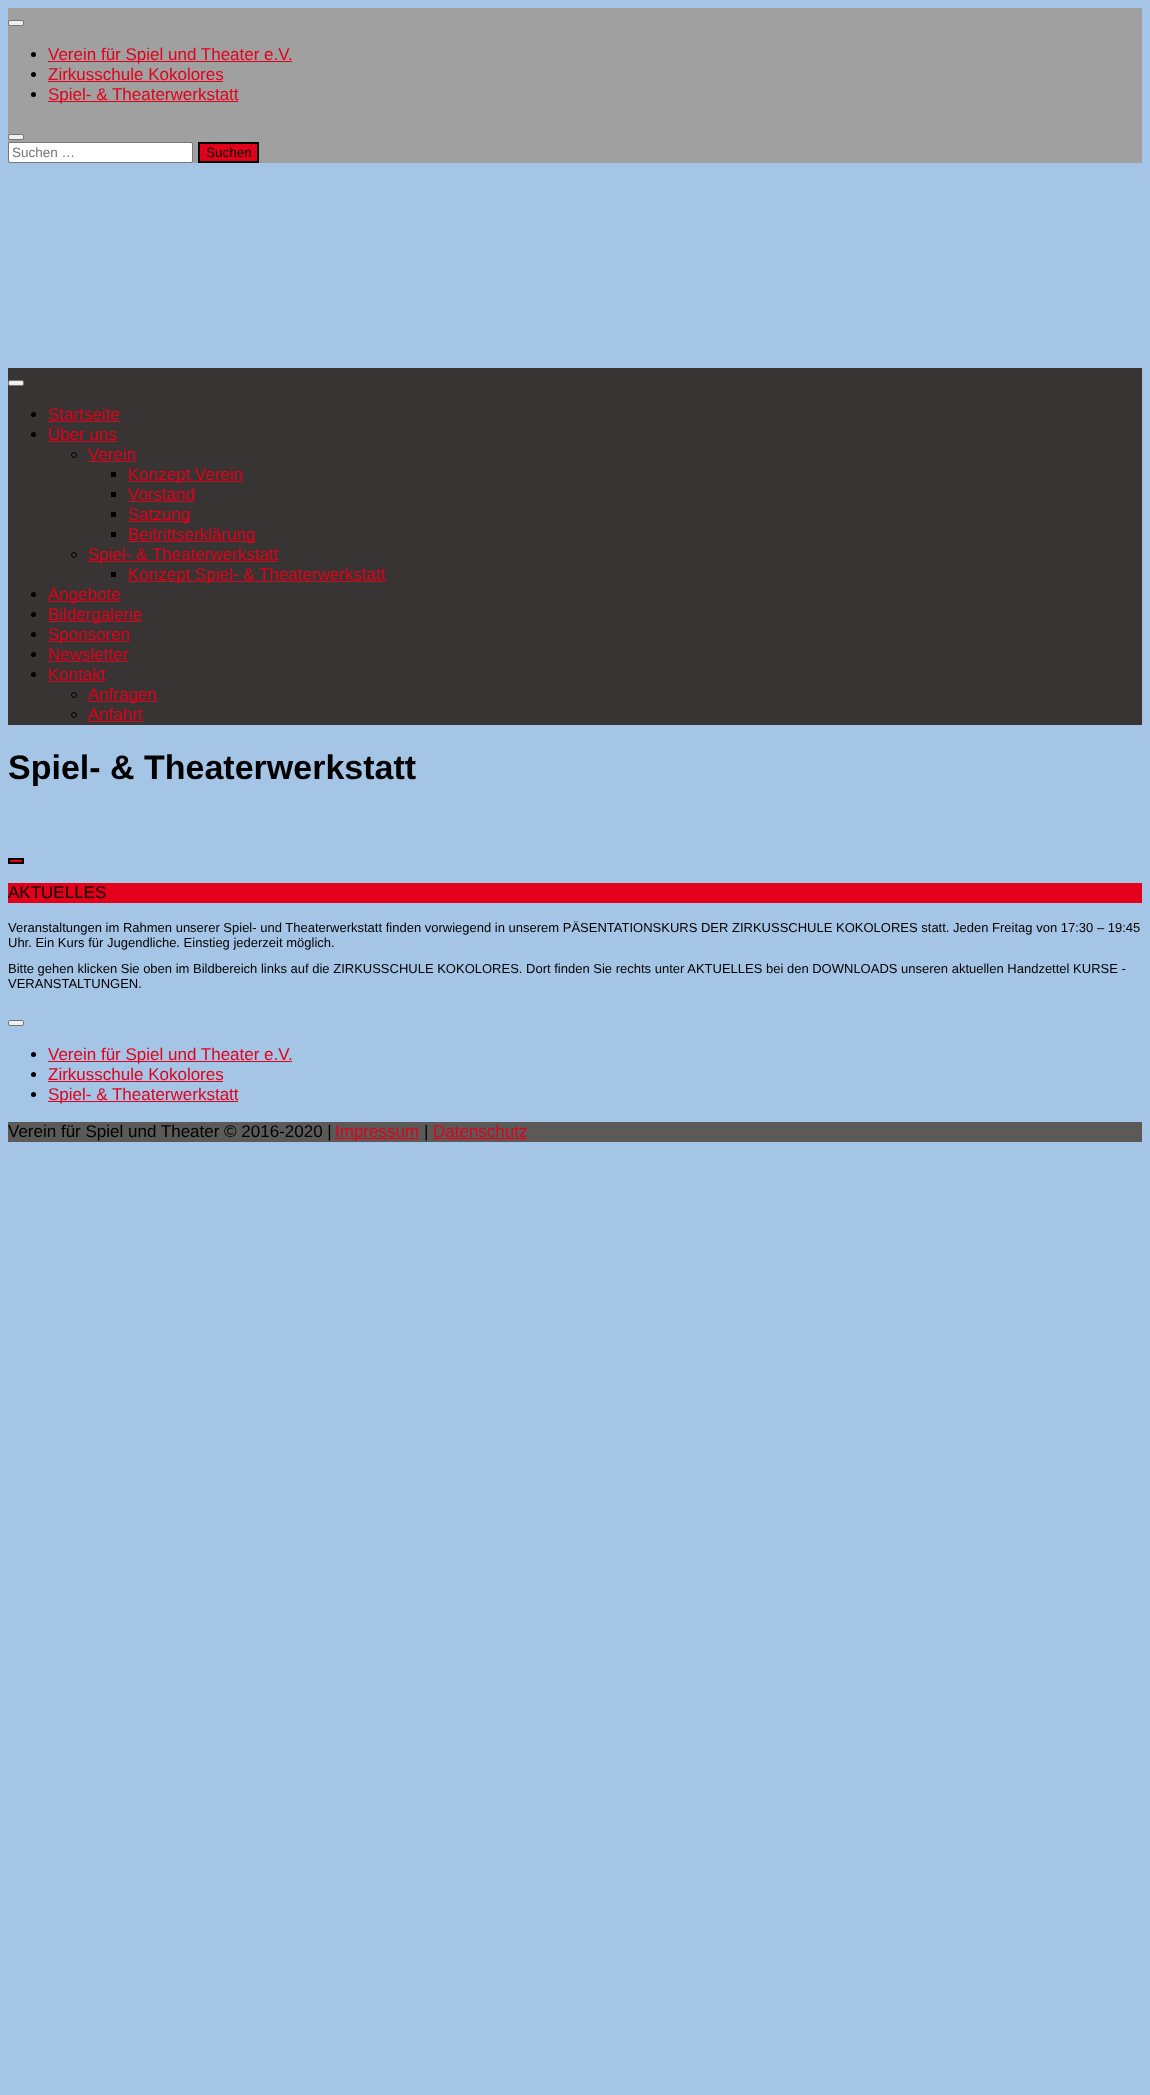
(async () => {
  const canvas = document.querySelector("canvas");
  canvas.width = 1150;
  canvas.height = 2095;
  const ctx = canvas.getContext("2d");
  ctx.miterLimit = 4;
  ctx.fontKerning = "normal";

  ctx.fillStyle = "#a4c5e5";
  ctx.fillRect(0, 0, 1150, 2095);
  ctx.fillStyle = "#a0a0a0";
  ctx.fillRect(8, 8, 1134, 155);
  ctx.fillStyle = "#efefef";
  ctx.beginPath();
  ctx.roundRect(8.5, 20.5, 15, 5, 1.5);
  ctx.fill();
  ctx.strokeStyle = "#767676";
  ctx.stroke();
  ctx.fillStyle = "#000000";
  ctx.beginPath();
  ctx.arc(33.5, 54.5, 2.5, 0, Math.PI * 2);
  ctx.fill();
  ctx.fillStyle = "#e2001a";
  ctx.fillRect(48, 61, 244, 1);
  ctx.fillStyle = "#000000";
  ctx.beginPath();
  ctx.arc(33.5, 74.5, 2.5, 0, Math.PI * 2);
  ctx.fill();
  ctx.fillStyle = "#e2001a";
  ctx.fillRect(48, 81, 175, 1);
  ctx.fillStyle = "#000000";
  ctx.beginPath();
  ctx.arc(33.5, 94.5, 2.5, 0, Math.PI * 2);
  ctx.fill();
  ctx.fillStyle = "#e2001a";
  ctx.fillRect(48, 101, 190, 1);
  ctx.fillStyle = "#efefef";
  ctx.beginPath();
  ctx.roundRect(8.5, 134.5, 15, 5, 1.5);
  ctx.fill();
  ctx.stroke();
  ctx.fillStyle = "#ffffff";
  ctx.beginPath();
  ctx.roundRect(8.5, 142.5, 184, 20, 1.5);
  ctx.fill();
  ctx.stroke();
  ctx.fillStyle = "#e2001a";
  ctx.beginPath();
  ctx.rect(199, 143, 59, 19);
  ctx.fill();
  ctx.strokeStyle = "#000000";
  ctx.lineWidth = 2;
  ctx.stroke();
  ctx.fillStyle = "#383434";
  ctx.fillRect(8, 368, 1134, 357);
  ctx.fillStyle = "#efefef";
  ctx.beginPath();
  ctx.roundRect(8.5, 380.5, 15, 5, 1.5);
  ctx.fill();
  ctx.strokeStyle = "#767676";
  ctx.lineWidth = 1;
  ctx.stroke();
  ctx.fillStyle = "#000000";
  ctx.beginPath();
  ctx.arc(33.5, 414.5, 2.5, 0, Math.PI * 2);
  ctx.fill();
  ctx.fillStyle = "#e2001a";
  ctx.fillRect(48, 421, 72, 1);
  ctx.fillStyle = "#000000";
  ctx.beginPath();
  ctx.arc(33.5, 434.5, 2.5, 0, Math.PI * 2);
  ctx.fill();
  ctx.fillStyle = "#e2001a";
  ctx.fillRect(48, 441, 69, 1);
  ctx.beginPath();
  ctx.arc(74, 455, 2.5, 0, Math.PI * 2);
  ctx.strokeStyle = "#000000";
  ctx.stroke();
  for (const [x, y, w, h, color] of [
    [88, 461, 48, 1, "#e2001a"],
    [111, 472, 5, 5, "#000000"],
    [128, 481, 115, 1, "#e2001a"],
    [111, 492, 5, 5, "#000000"],
    [128, 501, 67, 1, "#e2001a"],
    [111, 512, 5, 5, "#000000"],
    [128, 521, 62, 1, "#e2001a"],
    [111, 532, 5, 5, "#000000"],
    [128, 541, 127, 1, "#e2001a"],
  ]) {
    ctx.fillStyle = color;
    ctx.fillRect(x, y, w, h);
  }
  ctx.beginPath();
  ctx.arc(74, 555, 2.5, 0, Math.PI * 2);
  ctx.stroke();
  for (const [x, y, w, h, color] of [
    [88, 561, 190, 1, "#e2001a"],
    [111, 572, 5, 5, "#000000"],
    [128, 581, 257, 1, "#e2001a"],
  ]) {
    ctx.fillStyle = color;
    ctx.fillRect(x, y, w, h);
  }
  ctx.fillStyle = "#000000";
  ctx.beginPath();
  ctx.arc(33.5, 594.5, 2.5, 0, Math.PI * 2);
  ctx.fill();
  ctx.fillStyle = "#e2001a";
  ctx.fillRect(48, 601, 73, 1);
  ctx.fillStyle = "#000000";
  ctx.beginPath();
  ctx.arc(33.5, 614.5, 2.5, 0, Math.PI * 2);
  ctx.fill();
  ctx.fillStyle = "#e2001a";
  ctx.fillRect(48, 621, 94, 1);
  ctx.fillStyle = "#000000";
  ctx.beginPath();
  ctx.arc(33.5, 634.5, 2.5, 0, Math.PI * 2);
  ctx.fill();
  ctx.fillStyle = "#e2001a";
  ctx.fillRect(48, 641, 82, 1);
  ctx.fillStyle = "#000000";
  ctx.beginPath();
  ctx.arc(33.5, 654.5, 2.5, 0, Math.PI * 2);
  ctx.fill();
  ctx.fillStyle = "#e2001a";
  ctx.fillRect(48, 661, 80, 1);
  ctx.fillStyle = "#000000";
  ctx.beginPath();
  ctx.arc(33.5, 674.5, 2.5, 0, Math.PI * 2);
  ctx.fill();
  ctx.fillStyle = "#e2001a";
  ctx.fillRect(48, 681, 57, 1);
  ctx.beginPath();
  ctx.arc(74, 695, 2.5, 0, Math.PI * 2);
  ctx.stroke();
  ctx.fillRect(88, 701, 69, 1);
  ctx.beginPath();
  ctx.arc(74, 715, 2.5, 0, Math.PI * 2);
  ctx.stroke();
  ctx.fillRect(88, 721, 55, 1);
  ctx.beginPath();
  ctx.rect(9, 859, 14, 4);
  ctx.fill();
  ctx.lineWidth = 2;
  ctx.stroke();
  ctx.fillRect(8, 883, 1134, 20);
  ctx.fillStyle = "#efefef";
  ctx.beginPath();
  ctx.roundRect(8.5, 1020.5, 15, 5, 1.5);
  ctx.fill();
  ctx.strokeStyle = "#767676";
  ctx.lineWidth = 1;
  ctx.stroke();
  ctx.fillStyle = "#000000";
  ctx.beginPath();
  ctx.arc(33.5, 1054.5, 2.5, 0, Math.PI * 2);
  ctx.fill();
  ctx.fillStyle = "#e2001a";
  ctx.fillRect(48, 1061, 244, 1);
  ctx.fillStyle = "#000000";
  ctx.beginPath();
  ctx.arc(33.5, 1074.5, 2.5, 0, Math.PI * 2);
  ctx.fill();
  ctx.fillStyle = "#e2001a";
  ctx.fillRect(48, 1081, 175, 1);
  ctx.fillStyle = "#000000";
  ctx.beginPath();
  ctx.arc(33.5, 1094.5, 2.5, 0, Math.PI * 2);
  ctx.fill();
  for (const [x, y, w, h, color] of [
    [48, 1101, 190, 1, "#e2001a"],
    [8, 1122, 1134, 20, "#5b5a59"],
    [335, 1138, 84, 1, "#e2001a"],
    [433, 1138, 94, 1, "#e2001a"],
  ]) {
    ctx.fillStyle = color;
    ctx.fillRect(x, y, w, h);
  }
  ctx.font = "17px Liberation Sans";
  for (const [text, x, y] of [
    ["Verein für Spiel und Theater e.V.", 48, 60],
    ["Zirkusschule Kokolores", 48, 80],
    ["Spiel- & Theaterwerkstatt", 48, 100],
  ]) {
    ctx.fillText(text, x, y);
  }
  ctx.font = "13.5px Liberation Sans";
  ctx.fillStyle = "#757575";
  ctx.fillText("Suchen …", 12, 157);
  ctx.fillStyle = "#000000";
  ctx.fillText("Suchen", 206, 157);
  ctx.font = "17px Liberation Sans";
  ctx.fillStyle = "#e2001a";
  for (const [text, x, y] of [
    ["Startseite", 48, 420],
    ["Über uns", 48, 440],
    ["Verein", 88, 460],
    ["Konzept Verein", 128, 480],
    ["Vorstand", 128, 500],
    ["Satzung", 128, 520],
    ["Beitrittserklärung", 128, 540],
    ["Spiel- & Theaterwerkstatt", 88, 560],
    ["Konzept Spiel- & Theaterwerkstatt", 128, 580],
    ["Angebote", 48, 600],
    ["Bildergalerie", 48, 620],
    ["Sponsoren", 48, 640],
    ["Newsletter", 48, 660],
    ["Kontakt", 48, 680],
    ["Anfragen", 88, 700],
    ["Anfahrt", 88, 720],
  ]) {
    ctx.fillText(text, x, y);
  }
  ctx.font = "bold 34px Liberation Sans";
  ctx.fillStyle = "#000000";
  ctx.fillText("Spiel- & Theaterwerkstatt", 8, 779);
  ctx.font = "17px Liberation Sans";
  ctx.fillText("AKTUELLES", 8, 898);
  ctx.font = "13px Liberation Sans";
  for (const [text, x, y] of [
    ["Veranstaltungen im Rahmen unserer Spiel- und Theaterwerkstatt finden vorwiegend in unserem PÄSENTATIONSKURS DER ZIRKUSSCHULE KOKOLORES statt. Jeden Freitag von 17:30 – 19:45", 8, 932],
    ["Uhr. Ein Kurs für Jugendliche. Einstieg jederzeit möglich.", 8, 947],
    ["Bitte gehen klicken Sie oben im Bildbereich links auf die ZIRKUSSCHULE KOKOLORES. Dort finden Sie rechts unter AKTUELLES bei den DOWNLOADS unseren aktuellen Handzettel KURSE -", 8, 973],
    ["VERANSTALTUNGEN.", 8, 988],
  ]) {
    ctx.fillText(text, x, y);
  }
  ctx.font = "17px Liberation Sans";
  ctx.fillStyle = "#e2001a";
  for (const [text, x, y] of [
    ["Verein für Spiel und Theater e.V.", 48, 1060],
    ["Zirkusschule Kokolores", 48, 1080],
    ["Spiel- & Theaterwerkstatt", 48, 1100],
  ]) {
    ctx.fillText(text, x, y);
  }
  ctx.fillStyle = "#000000";
  ctx.fillText("Verein für Spiel und Theater © 2016-2020 |", 8, 1137);
  ctx.fillStyle = "#e2001a";
  ctx.fillText("Impressum", 335, 1137);
  ctx.fillStyle = "#000000";
  ctx.fillText("|", 424, 1137);
  ctx.fillStyle = "#e2001a";
  ctx.fillText("Datenschutz", 433, 1137);
})();
